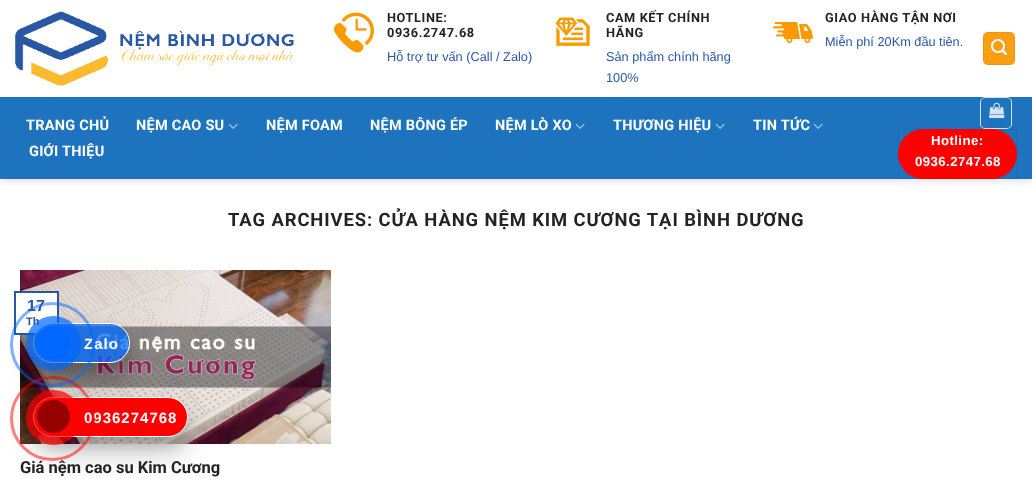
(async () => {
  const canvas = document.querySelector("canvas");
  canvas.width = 1032;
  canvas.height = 479;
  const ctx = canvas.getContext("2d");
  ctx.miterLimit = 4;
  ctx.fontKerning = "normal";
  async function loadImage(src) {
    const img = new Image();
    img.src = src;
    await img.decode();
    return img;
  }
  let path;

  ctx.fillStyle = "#ffffff";
  ctx.fillRect(0, 0, 1032, 479);
  ctx.save();
  ctx.beginPath();
  ctx.rect(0, 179, 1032, 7);
  ctx.clip();
  ctx.fillStyle = "rgba(0, 0, 0, 0.15)";
  ctx.filter = "blur(5px)";
  ctx.beginPath();
  ctx.rect(1, 1, 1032, 179);
  ctx.fill();
  ctx.filter = "none";
  ctx.restore();
  ctx.drawImage(await loadImage("img/1.png"), 15, 11, 279, 75);
  ctx.drawImage(await loadImage("img/2.png"), 334, 12, 40, 41);
  ctx.drawImage(await loadImage("img/3.png"), 555, 17, 35, 29);
  ctx.drawImage(await loadImage("img/4.png"), 773, 22, 40, 22);
  ctx.fillStyle = "#fa9e14";
  ctx.beginPath();
  ctx.roundRect(983, 32, 32, 33, 5);
  ctx.fill();
  ctx.strokeStyle = "rgba(0, 0, 0, 0.05)";
  ctx.strokeRect(983.5, 32.5, 31, 32);
  ctx.drawImage(await loadImage("img/5.png"), 991, 39, 16, 16);
  ctx.fillStyle = "#1e73be";
  ctx.fillRect(0, 97, 1032, 82);
  ctx.drawImage(await loadImage("img/6.png"), 228, 123, 10, 6);
  ctx.drawImage(await loadImage("img/6.png"), 575, 123, 10, 6);
  ctx.drawImage(await loadImage("img/6.png"), 715, 123, 10, 6);
  ctx.drawImage(await loadImage("img/6.png"), 813, 123, 10, 6);
  ctx.beginPath();
  ctx.roundRect(980.5, 97.5, 31, 31, 4.5);
  ctx.strokeStyle = "#d2e3f2";
  ctx.stroke();
  ctx.drawImage(await loadImage("img/7.png"), 989, 102, 16, 17);
  ctx.fillStyle = "#ff0000";
  ctx.beginPath();
  ctx.roundRect(898, 129, 119, 50, 25);
  ctx.fill();
  ctx.strokeStyle = "rgba(0, 0, 0, 0.05)";
  ctx.strokeRect(898.5, 129.5, 118, 49);
  ctx.drawImage(await loadImage("img/8.png"), 20, 270, 311, 174);
  ctx.fillStyle = "#ffffff";
  ctx.fillRect(20, 293, 37, 40);
  ctx.strokeStyle = "#2a57a4";
  ctx.lineWidth = 2;
  ctx.strokeRect(15, 292, 43, 42);
  ctx.fillStyle = "rgba(0, 0, 0, 0.1)";
  ctx.filter = "blur(5px)";
  ctx.beginPath();
  ctx.roundRect(33, 407, 155, 40, 20);
  ctx.fill();
  ctx.filter = "none";
  ctx.fillStyle = "rgba(0, 0, 0, 0.25)";
  ctx.filter = "blur(14px)";
  ctx.beginPath();
  ctx.roundRect(33, 411, 155, 40, 20);
  ctx.fill();
  ctx.filter = "none";
  ctx.fillStyle = "#fe0000";
  ctx.beginPath();
  ctx.roundRect(33.5, 397.5, 154, 39, 19.5);
  ctx.fill();
  ctx.strokeStyle = "#ffffff";
  ctx.lineWidth = 1;
  ctx.stroke();
  ctx.letterSpacing = "0.6px";
  ctx.font = "bold 12.75px Roboto";
  ctx.fillStyle = "#232323";
  ctx.fillText("HOTLINE:", 387, 22);
  ctx.fillText("0936.2747.68", 387, 37);
  ctx.letterSpacing = "0px";
  ctx.font = "12.75px Liberation Sans";
  ctx.fillStyle = "#2a57a4";
  ctx.fillText("Hỗ trợ tư vấn (Call / Zalo)", 387, 61);
  ctx.letterSpacing = "0.6px";
  ctx.font = "bold 12.75px Roboto";
  ctx.fillStyle = "#232323";
  ctx.fillText("CAM KẾT CHÍNH", 606, 22);
  ctx.fillText("HÃNG", 606, 37);
  ctx.letterSpacing = "0px";
  ctx.font = "12.75px Liberation Sans";
  ctx.fillStyle = "#2a57a4";
  ctx.fillText("Sản phẩm chính hãng", 606, 61);
  ctx.fillText("100%", 606, 82);
  ctx.letterSpacing = "0.6px";
  ctx.font = "bold 12.75px Roboto";
  ctx.fillStyle = "#232323";
  ctx.fillText("GIAO HÀNG TẬN NƠI", 825, 22);
  ctx.letterSpacing = "0px";
  ctx.font = "12.75px Liberation Sans";
  ctx.fillStyle = "#2a57a4";
  ctx.fillText("Miễn phí 20Km đầu tiên.", 825, 46);
  ctx.letterSpacing = "0.25px";
  ctx.font = "bold 14.5px Roboto";
  ctx.fillStyle = "#ffffff";
  for (const [text, x, y] of [
    ["TRANG CHỦ", 26, 130],
    ["NỆM CAO SU", 136, 130],
    ["NỆM FOAM", 266, 130],
    ["NỆM BÔNG ÉP", 370, 130],
    ["NỆM LÒ XO", 495, 130],
    ["THƯƠNG HIỆU", 613, 130],
    ["TIN TỨC", 753, 130],
    ["GIỚI THIỆU", 29, 156],
  ]) {
    ctx.fillText(text, x, y);
  }
  ctx.letterSpacing = "0.4px";
  ctx.font = "bold 13.25px Liberation Sans";
  ctx.fillText("Hotline:", 931, 145);
  ctx.fillText("0936.2747.68", 915, 166);
  ctx.letterSpacing = "0.92px";
  ctx.font = "bold 18.4px Roboto";
  ctx.fillStyle = "#232323";
  ctx.fillText("TAG ARCHIVES: CỬA HÀNG NỆM KIM CƯƠNG TẠI BÌNH DƯƠNG", 228, 226);
  ctx.letterSpacing = "0px";
  ctx.font = "bold 16px Liberation Sans";
  ctx.fillStyle = "#2a57a4";
  ctx.fillText("17", 27, 311);
  ctx.font = "bold 11px Liberation Sans";
  ctx.fillText("Th", 26, 325);
  ctx.font = "bold 16.5px Roboto";
  ctx.fillStyle = "#232323";
  ctx.fillText("Giá nệm cao su Kim Cương", 20, 473);
  ctx.letterSpacing = "1px";
  ctx.font = "bold 15px Liberation Sans";
  ctx.fillStyle = "#ffffff";
  ctx.fillText("0936274768", 84, 423);
  ctx.beginPath();
  ctx.arc(52.5, 418.5, 41, 0, Math.PI * 2);
  ctx.strokeStyle = "rgba(255, 0, 0, 0.5)";
  ctx.lineWidth = 3;
  ctx.stroke();
  ctx.fillStyle = "rgba(255, 0, 0, 0.7)";
  ctx.beginPath();
  ctx.arc(53.5, 417.5, 27.5, 0, Math.PI * 2);
  ctx.fill();
  ctx.fillStyle = "#950000";
  ctx.beginPath();
  ctx.arc(53.5, 416.5, 16.5, 0, Math.PI * 2);
  ctx.fill();
  ctx.save();
  path = new Path2D("M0 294H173V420H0ZM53 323H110C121 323 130 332 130 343C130 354 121 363 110 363H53C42 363 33 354 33 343C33 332 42 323 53 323Z");
  ctx.clip(path, "evenodd");
  ctx.fillStyle = "rgba(0, 0, 0, 0.25)";
  ctx.filter = "blur(14px)";
  ctx.beginPath();
  ctx.roundRect(33, 337, 97, 40, 20);
  ctx.fill();
  ctx.filter = "none";
  ctx.restore();
  ctx.save();
  path = new Path2D("M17 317H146V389H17ZM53 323H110C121 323 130 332 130 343C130 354 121 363 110 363H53C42 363 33 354 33 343C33 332 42 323 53 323Z");
  ctx.clip(path, "evenodd");
  ctx.fillStyle = "rgba(0, 0, 0, 0.1)";
  ctx.filter = "blur(5px)";
  ctx.beginPath();
  ctx.roundRect(33, 333, 97, 40, 20);
  ctx.fill();
  ctx.filter = "none";
  ctx.restore();
  ctx.fillStyle = "rgba(0, 104, 255, 0.75)";
  ctx.beginPath();
  ctx.roundRect(33.5, 323.5, 96, 39, 19.5);
  ctx.fill();
  ctx.strokeStyle = "#ffffff";
  ctx.lineWidth = 1;
  ctx.stroke();
  ctx.fillStyle = "#ffffff";
  ctx.fillText("Zalo", 84, 349);
  ctx.beginPath();
  ctx.arc(52.5, 344.5, 41, 0, Math.PI * 2);
  ctx.strokeStyle = "rgba(0, 104, 255, 0.5)";
  ctx.lineWidth = 3;
  ctx.stroke();
  ctx.fillStyle = "rgba(0, 104, 255, 0.7)";
  ctx.beginPath();
  ctx.arc(53.5, 343.5, 27.5, 0, Math.PI * 2);
  ctx.fill();
  ctx.fillStyle = "#0068ff";
  ctx.beginPath();
  ctx.arc(53.5, 342.5, 16.5, 0, Math.PI * 2);
  ctx.fill();
})();
